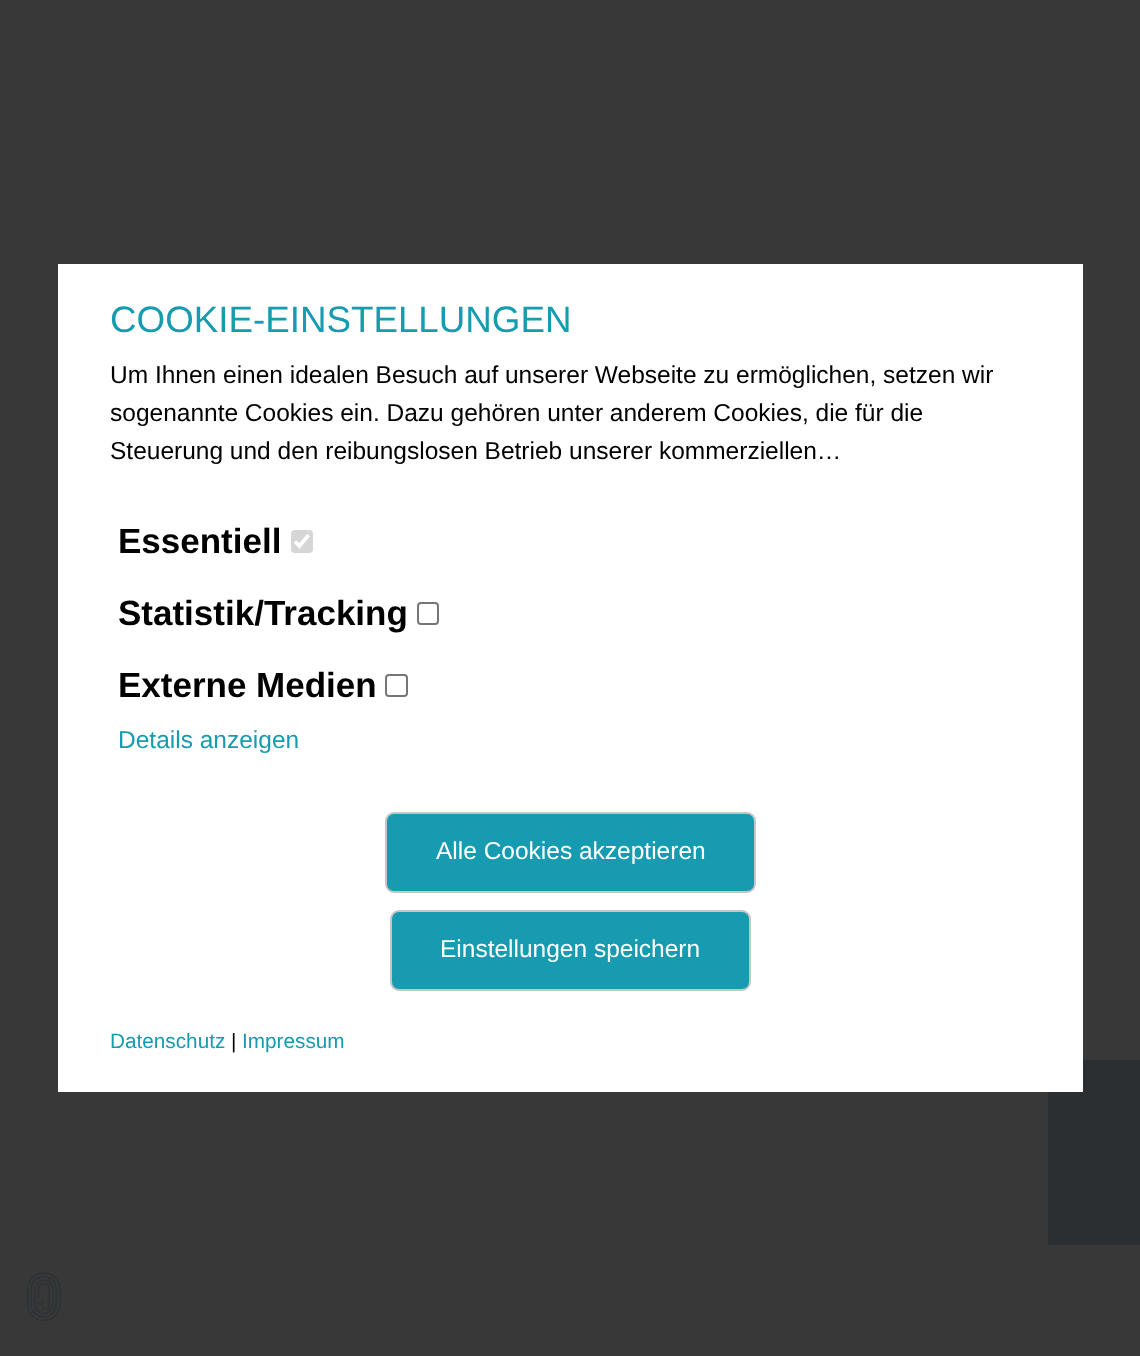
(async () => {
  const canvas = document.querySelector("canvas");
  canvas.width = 1140;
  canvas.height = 1356;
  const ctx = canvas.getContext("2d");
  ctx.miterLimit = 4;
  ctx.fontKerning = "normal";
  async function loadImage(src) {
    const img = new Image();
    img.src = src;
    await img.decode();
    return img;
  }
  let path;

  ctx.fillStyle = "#383838";
  ctx.fillRect(0, 0, 1140, 1356);
  ctx.fillStyle = "#2c2f31";
  ctx.fillRect(1048, 1060, 92, 185);
  ctx.fillStyle = "#ffffff";
  ctx.fillRect(58, 264, 1025, 828);
  ctx.fillStyle = "#d6d6d6";
  ctx.beginPath();
  ctx.roundRect(291, 530, 22, 23, 4);
  ctx.fill();
  path = new Path2D("M295 541.5L299.5 546L308.5 535");
  ctx.strokeStyle = "#ffffff";
  ctx.lineWidth = 3.6;
  ctx.stroke(path);
  ctx.beginPath();
  ctx.roundRect(418, 603, 20, 21, 3);
  ctx.strokeStyle = "#767676";
  ctx.lineWidth = 2;
  ctx.stroke();
  ctx.beginPath();
  ctx.roundRect(386, 675, 21, 21, 3);
  ctx.stroke();
  ctx.fillStyle = "#179bb1";
  ctx.beginPath();
  ctx.roundRect(386, 813, 369, 79, 8);
  ctx.fill();
  ctx.strokeStyle = "#c6c6c6";
  ctx.stroke();
  ctx.beginPath();
  ctx.roundRect(391, 911, 359, 79, 8);
  ctx.fill();
  ctx.stroke();
  ctx.drawImage(await loadImage("img/1.png"), 26, 1272, 35, 50);
  ctx.font = "36.75px Liberation Sans";
  ctx.fillText("COOKIE-EINSTELLUNGEN", 110, 332);
  ctx.font = "24.5px Liberation Sans";
  ctx.fillStyle = "#000000";
  for (const [text, x, y] of [
    ["Um Ihnen einen idealen Besuch auf unserer Webseite zu ermöglichen, setzen wir", 110, 383],
    ["sogenannte Cookies ein. Dazu gehören unter anderem Cookies, die für die", 110, 421],
    ["Steuerung und den reibungslosen Betrieb unserer kommerziellen…", 110, 459],
  ]) {
    ctx.fillText(text, x, y);
  }
  ctx.font = "bold 35px Liberation Sans";
  for (const [text, x, y] of [
    ["Essentiell", 118, 553],
    ["Statistik/Tracking", 118, 625],
    ["Externe Medien", 118, 697],
  ]) {
    ctx.fillText(text, x, y);
  }
  ctx.font = "24.5px Liberation Sans";
  ctx.fillStyle = "#179bb1";
  ctx.fillText("Details anzeigen", 118, 748);
  ctx.fillStyle = "#ffffff";
  ctx.fillText("Alle Cookies akzeptieren", 436, 859);
  ctx.fillText("Einstellungen speichern", 440, 957);
  ctx.font = "20.75px Liberation Sans";
  ctx.fillStyle = "#179bb1";
  ctx.fillText("Datenschutz", 110, 1048);
  ctx.fillStyle = "#000000";
  ctx.fillText("|", 231, 1048);
  ctx.fillStyle = "#179bb1";
  ctx.fillText("Impressum", 242, 1048);
})();
